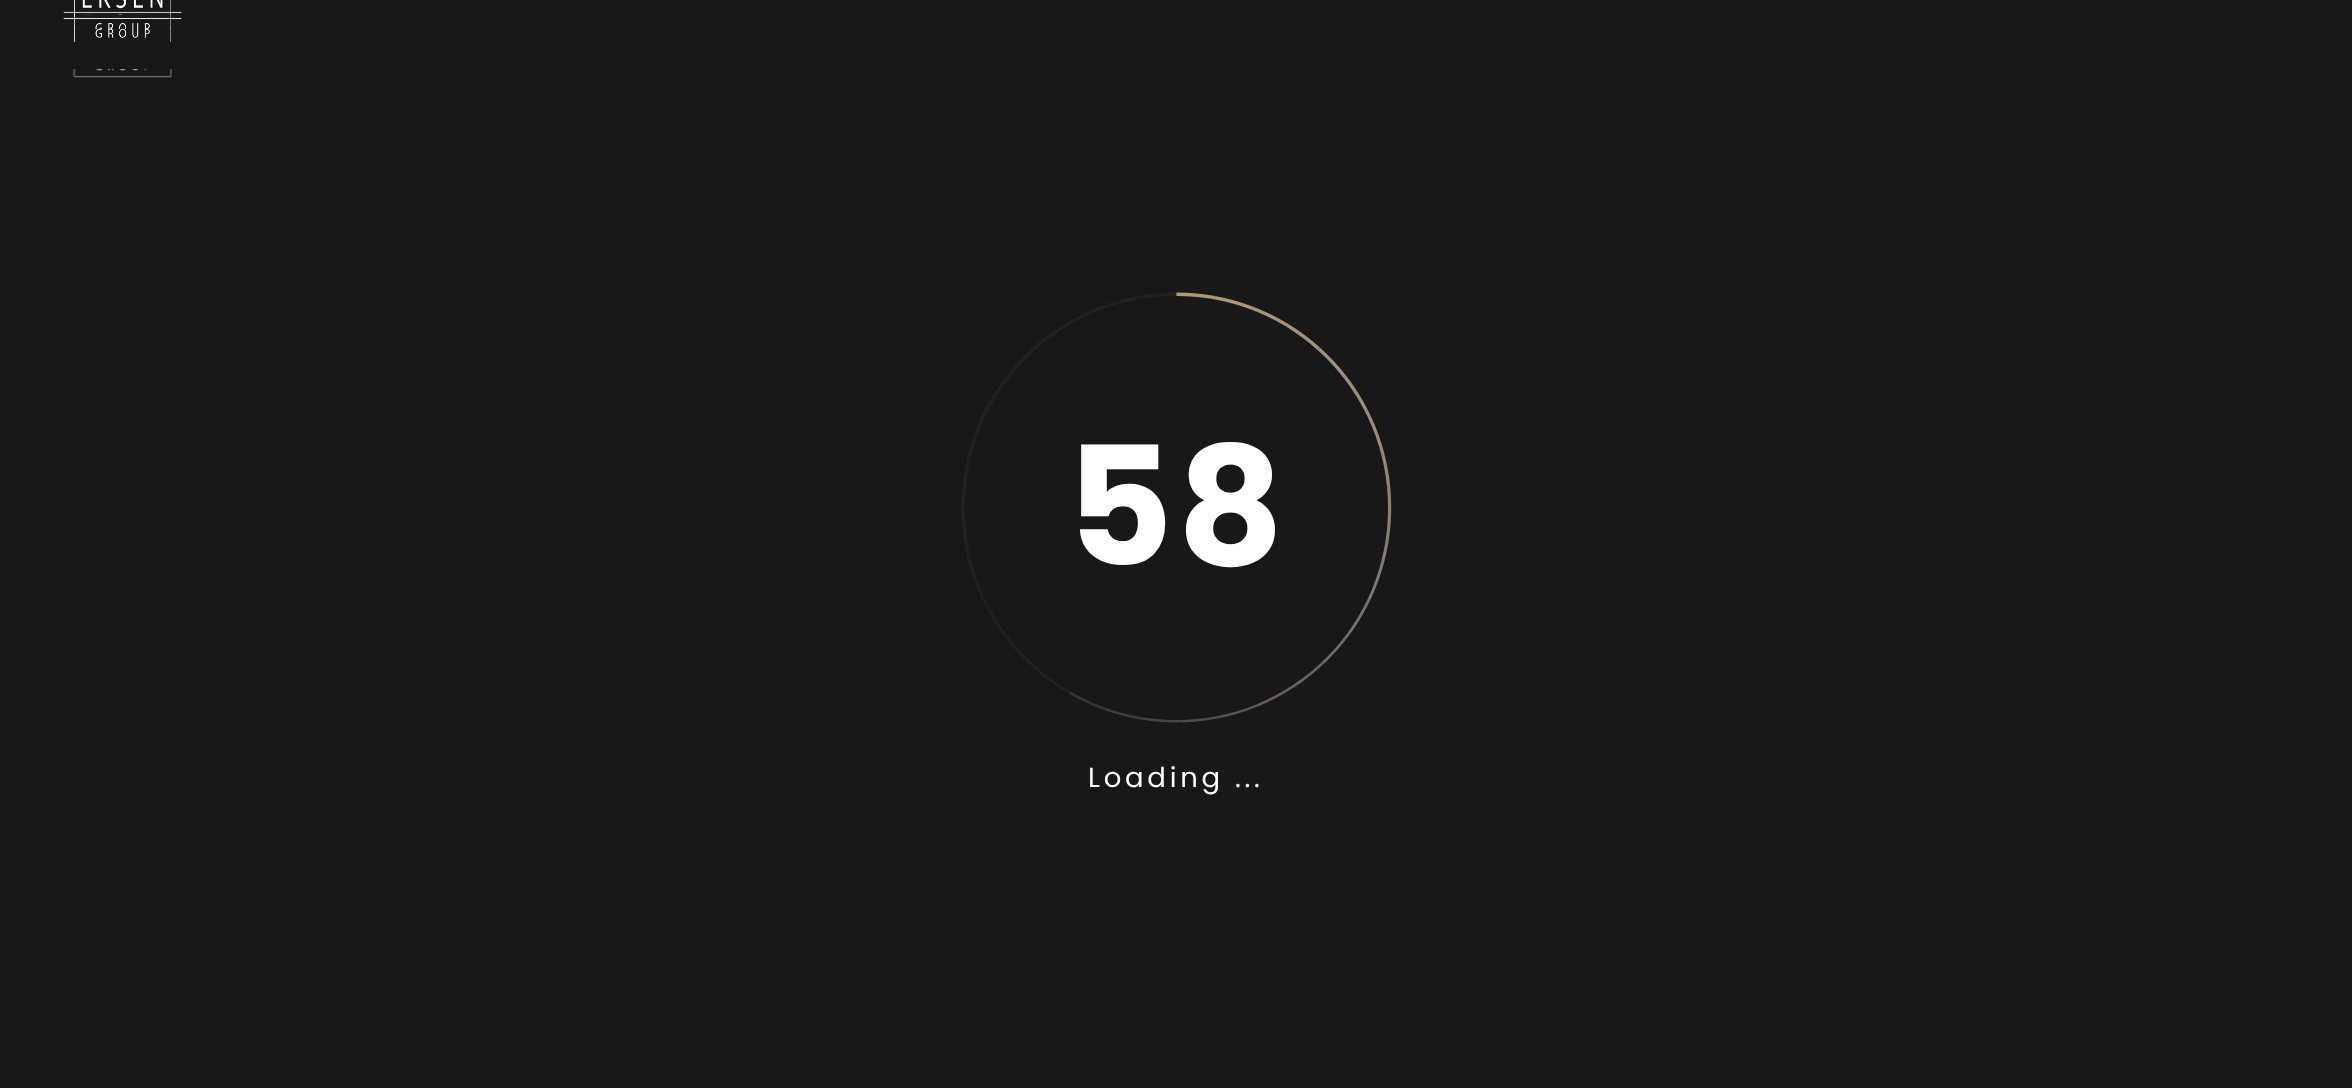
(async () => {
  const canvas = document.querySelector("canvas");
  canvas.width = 2352;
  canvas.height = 1088;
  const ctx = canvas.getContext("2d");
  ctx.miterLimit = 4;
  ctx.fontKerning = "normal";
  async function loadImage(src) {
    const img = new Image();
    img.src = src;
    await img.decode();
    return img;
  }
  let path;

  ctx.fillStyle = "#ffffff";
  ctx.fillRect(0, 0, 2352, 1088);
  ctx.fillStyle = "#181818";
  path = new Path2D("M-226-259L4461 151L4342 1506L-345 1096Z");
  ctx.fill(path);
  ctx.drawImage(await loadImage("img/3.png"), 74, 28, 97, 14);
  ctx.drawImage(await loadImage("img/2.png"), 63, 14, 119, 15);
  ctx.drawImage(await loadImage("img/1.png"), 63, 0, 119, 15);
  ctx.drawImage(await loadImage("img/4.png"), 73, 69, 99, 9);
  ctx.drawImage(await loadImage("img/5.png"), 961, 292, 431, 431);
  ctx.beginPath();
  ctx.roundRect(965, 296, 423, 424, 211.5);
  ctx.fill();
  ctx.letterSpacing = "3.75px";
  ctx.font = "bold 165px Poppins";
  ctx.fillStyle = "#ffffff";
  ctx.fillText("58", 1066, 565);
  ctx.font = "27.5px Poppins";
  ctx.fillText("Loading ...", 1088, 787);
})();
